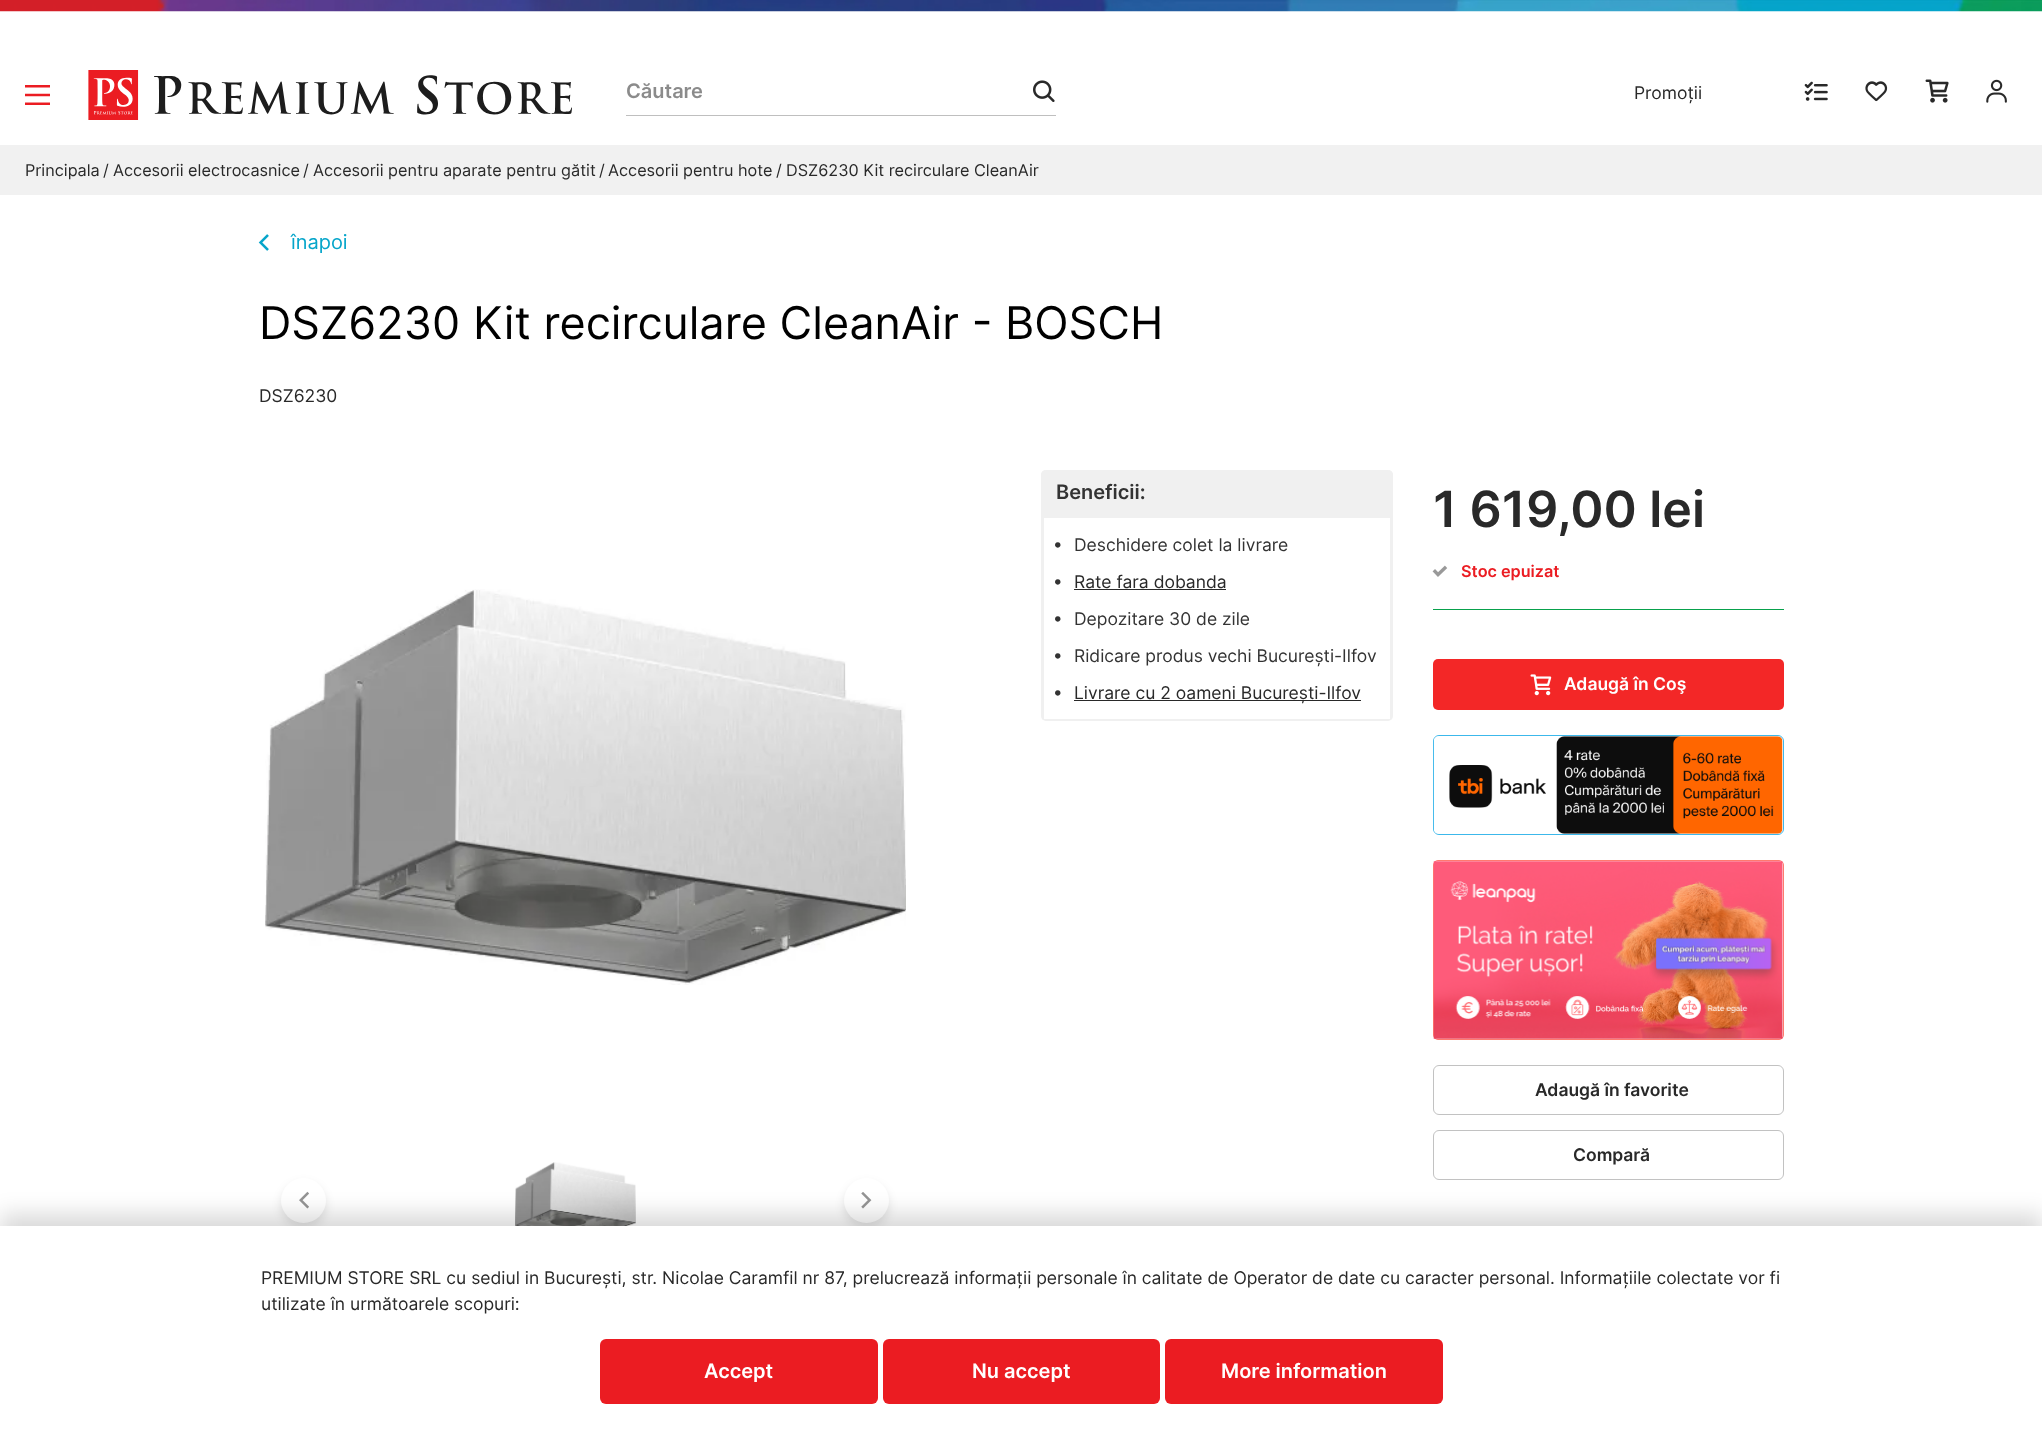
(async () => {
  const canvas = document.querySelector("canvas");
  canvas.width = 2042;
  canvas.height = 1441;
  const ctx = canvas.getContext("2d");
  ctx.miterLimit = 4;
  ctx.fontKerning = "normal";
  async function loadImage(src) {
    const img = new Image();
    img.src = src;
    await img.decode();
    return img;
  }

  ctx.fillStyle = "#ffffff";
  ctx.fillRect(0, 0, 2042, 1441);
  ctx.drawImage(await loadImage("img/1.png"), 0, 0, 2042, 12);
  ctx.drawImage(await loadImage("img/2.png"), 25, 85, 25, 20);
  ctx.drawImage(await loadImage("img/3.png"), 88, 70, 484, 50);
  ctx.fillStyle = "#bfbfbf";
  ctx.fillRect(626, 115, 430, 1);
  ctx.drawImage(await loadImage("img/4.png"), 1033, 80, 22, 22);
  ctx.drawImage(await loadImage("img/5.png"), 1804, 81, 24, 20);
  ctx.drawImage(await loadImage("img/6.png"), 1865, 81, 23, 21);
  ctx.drawImage(await loadImage("img/7.png"), 1925, 79, 24, 24);
  ctx.drawImage(await loadImage("img/8.png"), 1986, 79, 21, 24);
  ctx.fillStyle = "#f1f1f1";
  ctx.fillRect(0, 145, 2042, 50);
  ctx.drawImage(await loadImage("img/9.png"), 258, 234, 11, 17);
  ctx.drawImage(await loadImage("img/10.png"), 265, 589, 641, 396);
  ctx.fillStyle = "rgba(0, 0, 0, 0.1)";
  ctx.filter = "blur(5px)";
  ctx.beginPath();
  ctx.roundRect(281, 1183, 45, 45, 22.5);
  ctx.fill();
  ctx.filter = "none";
  ctx.fillStyle = "#ffffff";
  ctx.beginPath();
  ctx.arc(303.5, 1200.5, 22.5, 0, Math.PI * 2);
  ctx.fill();
  ctx.drawImage(await loadImage("img/11.png"), 299, 1191, 10, 18);
  ctx.drawImage(await loadImage("img/12.png"), 515, 1162, 121, 64);
  ctx.fillStyle = "rgba(0, 0, 0, 0.1)";
  ctx.filter = "blur(5px)";
  ctx.beginPath();
  ctx.roundRect(844, 1183, 45, 45, 22.5);
  ctx.fill();
  ctx.filter = "none";
  ctx.fillStyle = "#ffffff";
  ctx.beginPath();
  ctx.arc(866.5, 1200.5, 22.5, 0, Math.PI * 2);
  ctx.fill();
  ctx.drawImage(await loadImage("img/13.png"), 861, 1192, 11, 17);
  ctx.fillStyle = "#f0f0f0";
  ctx.beginPath();
  ctx.roundRect(1041, 470, 352, 251, 5);
  ctx.fill();
  ctx.beginPath();
  ctx.roundRect(1041, 470, 352, 45, [5, 5, 0, 0]);
  ctx.fill();
  for (const [x, y, w, h, color] of [
    [1044, 518, 346, 201, "#ffffff"],
    [1074, 589, 152, 1, "#292929"],
    [1074, 700, 287, 1, "#292929"],
    [1433, 609, 351, 1, "#08a14c"],
  ]) {
    ctx.fillStyle = color;
    ctx.fillRect(x, y, w, h);
  }
  ctx.drawImage(await loadImage("img/14.png"), 1432, 565, 16, 12);
  ctx.fillStyle = "#f32727";
  ctx.beginPath();
  ctx.roundRect(1433, 659, 351, 51, 5);
  ctx.fill();
  ctx.drawImage(await loadImage("img/15.png"), 1530, 674, 22, 22);
  ctx.beginPath();
  ctx.roundRect(1433.5, 735.5, 350, 99, 5.5);
  ctx.strokeStyle = "#3cb8eb";
  ctx.stroke();
  ctx.drawImage(await loadImage("img/16.png"), 1433, 736, 350, 98);
  ctx.beginPath();
  ctx.roundRect(1433.5, 860.5, 350, 179, 4.5);
  ctx.strokeStyle = "#ff7a6f";
  ctx.stroke();
  ctx.drawImage(await loadImage("img/17.png"), 1433, 861, 350, 178);
  ctx.beginPath();
  ctx.roundRect(1433.5, 1065.5, 350, 49, 5.5);
  ctx.strokeStyle = "#c2c2c2";
  ctx.stroke();
  ctx.beginPath();
  ctx.roundRect(1433.5, 1130.5, 350, 49, 5.5);
  ctx.stroke();
  ctx.fillStyle = "rgba(0, 0, 0, 0.15)";
  ctx.filter = "blur(11px)";
  ctx.beginPath();
  ctx.rect(0, 1214, 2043, 215);
  ctx.fill();
  ctx.filter = "none";
  ctx.fillStyle = "#ffffff";
  ctx.fillRect(0, 1226, 2042, 215);
  ctx.fillStyle = "#eb1c22";
  ctx.beginPath();
  ctx.roundRect(600, 1339, 278, 65, 6);
  ctx.fill();
  ctx.beginPath();
  ctx.roundRect(883, 1339, 277, 65, 6);
  ctx.fill();
  ctx.beginPath();
  ctx.roundRect(1165, 1339, 278, 65, 6);
  ctx.fill();
  ctx.font = "600 20px Inter";
  ctx.fillStyle = "#8b8b8b";
  ctx.fillText("Căutare", 626, 98);
  ctx.font = "17.5px Inter";
  ctx.fillStyle = "#292929";
  ctx.fillText("Promoții", 1634, 99);
  ctx.font = "16.25px Inter";
  for (const [text, x, y] of [
    ["Principala", 25, 176],
    ["/", 103, 176],
    ["Accesorii electrocasnice", 113, 176],
    ["/", 303, 176],
    ["Accesorii pentru aparate pentru gătit", 313, 176],
    ["/", 599, 176],
    ["Accesorii pentru hote", 608, 176],
    ["/", 776, 176],
    ["DSZ6230 Kit recirculare CleanAir", 786, 176],
  ]) {
    ctx.fillText(text, x, y);
  }
  ctx.font = "20px Inter";
  ctx.fillStyle = "#05a5ca";
  ctx.fillText("înapoi", 291, 249);
  ctx.font = "45px Inter";
  ctx.fillStyle = "#000000";
  ctx.fillText("DSZ6230 Kit recirculare CleanAir - BOSCH", 259, 339);
  ctx.font = "17.5px Inter";
  ctx.fillStyle = "#292929";
  ctx.fillText("DSZ6230", 259, 402);
  ctx.font = "600 20px Inter";
  ctx.fillStyle = "#333333";
  ctx.fillText("Beneficii:", 1056, 499);
  ctx.font = "800 17.5px Inter";
  ctx.fillText("•", 1054, 550);
  ctx.font = "17.5px Inter";
  ctx.fillText("Deschidere colet la livrare", 1074, 551);
  ctx.font = "800 17.5px Inter";
  ctx.fillText("•", 1054, 587);
  ctx.font = "17.5px Inter";
  ctx.fillStyle = "#292929";
  ctx.fillText("Rate fara dobanda", 1074, 588);
  ctx.font = "800 17.5px Inter";
  ctx.fillStyle = "#333333";
  ctx.fillText("•", 1054, 624);
  ctx.font = "17.5px Inter";
  ctx.fillText("Depozitare 30 de zile", 1074, 625);
  ctx.font = "800 17.5px Inter";
  ctx.fillText("•", 1054, 661);
  ctx.font = "17.5px Inter";
  ctx.fillText("Ridicare produs vechi București-Ilfov", 1074, 662);
  ctx.font = "800 17.5px Inter";
  ctx.fillText("•", 1054, 698);
  ctx.font = "17.5px Inter";
  ctx.fillStyle = "#292929";
  ctx.fillText("Livrare cu 2 oameni București-Ilfov", 1074, 699);
  ctx.font = "600 50px Inter";
  ctx.fillText("1 619,00 lei", 1433, 527);
  ctx.font = "600 16.25px Inter";
  ctx.fillStyle = "#eb1c22";
  ctx.fillText("Stoc epuizat", 1461, 577);
  ctx.font = "600 17.5px Inter";
  ctx.fillStyle = "#ffffff";
  ctx.fillText("Adaugă în Coş", 1564, 690);
  ctx.fillStyle = "#292929";
  ctx.fillText("Adaugă în favorite", 1535, 1096);
  ctx.fillText("Compară", 1573, 1161);
  ctx.font = "17.5px Inter";
  ctx.fillText("PREMIUM STORE SRL cu sediul in București, str. Nicolae Caramfil nr 87, prelucrează informații personale în calitate de Operator de date cu caracter personal. Informațiile colectate vor fi", 261, 1284);
  ctx.fillText("utilizate în următoarele scopuri:", 261, 1310);
  ctx.font = "600 20px Inter";
  ctx.fillStyle = "#ffffff";
  for (const [text, x, y] of [
    ["Accept", 704, 1378],
    ["Nu accept", 972, 1378],
    ["More information", 1221, 1378],
  ]) {
    ctx.fillText(text, x, y);
  }
})();
